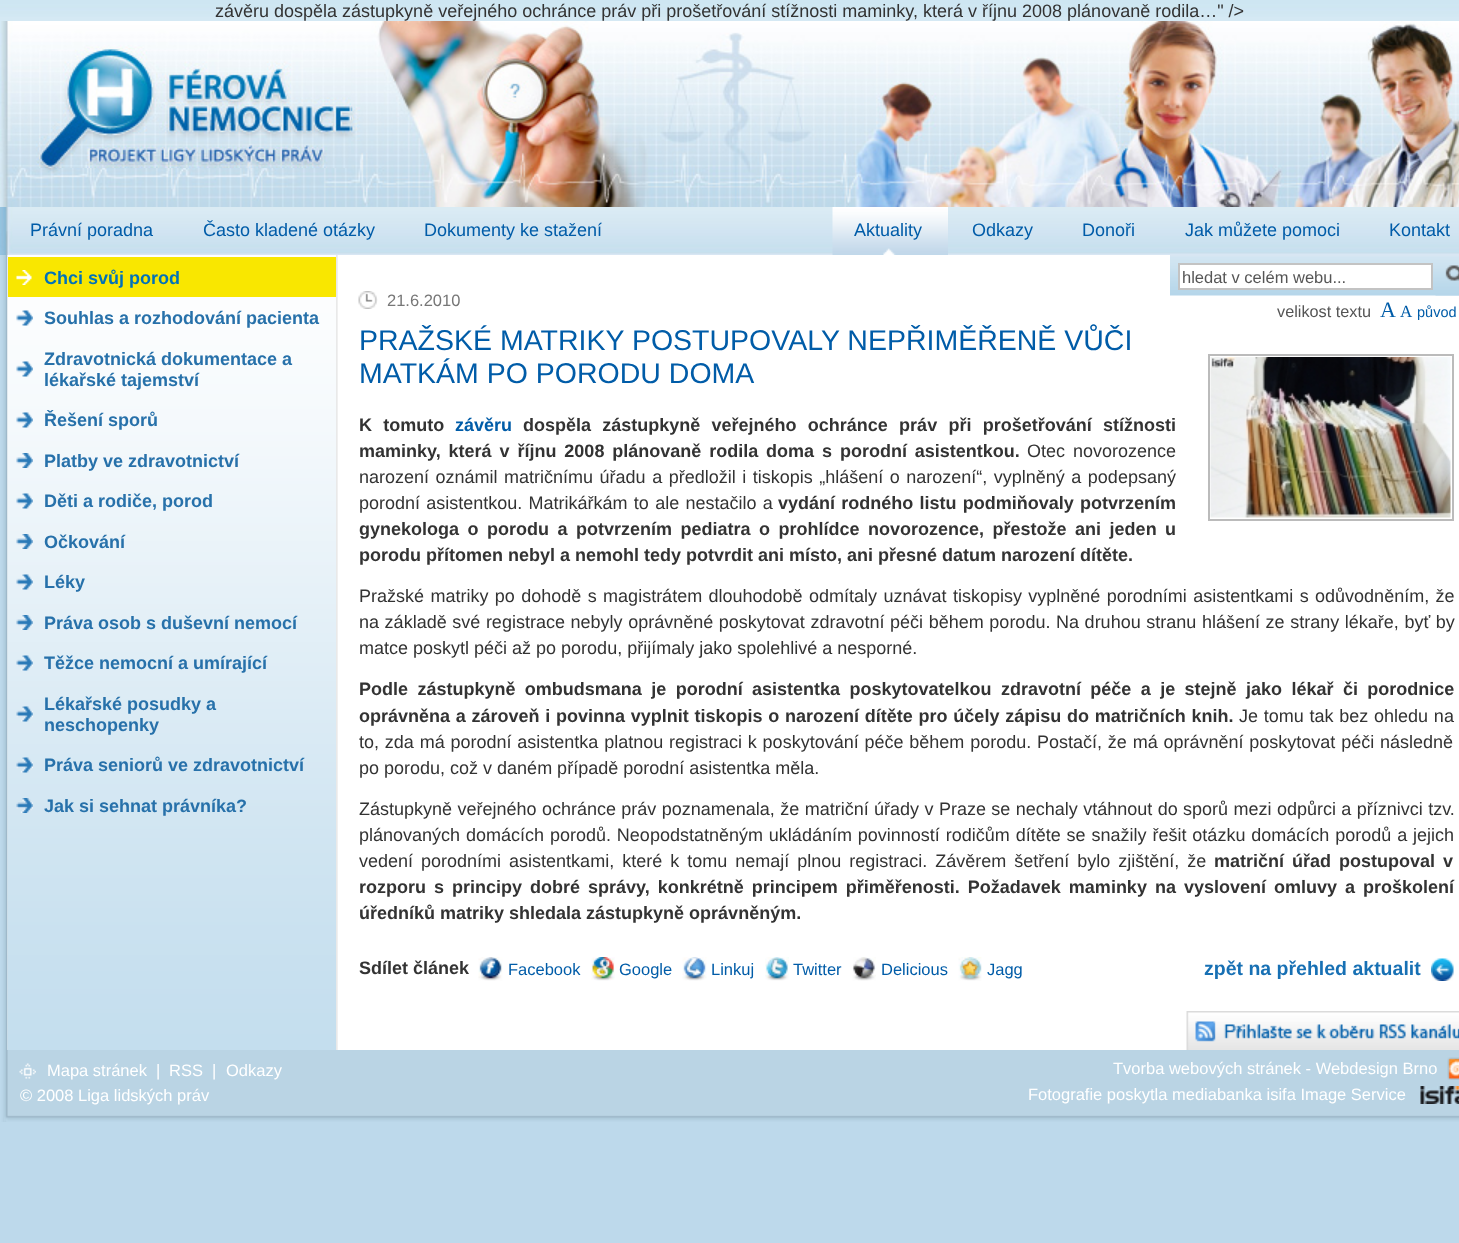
(async () => {
  const canvas = document.querySelector("canvas");
  canvas.width = 1459;
  canvas.height = 1243;
  const ctx = canvas.getContext("2d");
  ctx.miterLimit = 4;
  ctx.fontKerning = "normal";
  async function loadImage(src) {
    const img = new Image();
    img.src = src;
    await img.decode();
    return img;
  }

  ctx.fillStyle = "#bdd9eb";
  ctx.fillRect(0, 0, 1459, 1243);
  ctx.drawImage(await loadImage("img/1.png"), 0, 0, 1459, 21);
  ctx.fillStyle = "#ffffff";
  ctx.fillRect(338, 255, 1121, 795);
  ctx.drawImage(await loadImage("img/2.png"), 0, 255, 338, 867);
  ctx.drawImage(await loadImage("img/3.png"), 0, 21, 1459, 186);
  ctx.drawImage(await loadImage("img/4.png"), 39, 49, 312, 119);
  ctx.drawImage(await loadImage("img/5.png"), 0, 207, 1459, 48);
  ctx.drawImage(await loadImage("img/6.png"), 832, 207, 116, 48);
  ctx.drawImage(await loadImage("img/7.png"), 883, 248, 13, 7);
  ctx.drawImage(await loadImage("img/8.png"), 7, 255, 329, 795);
  ctx.fillStyle = "#f9e700";
  ctx.fillRect(8, 257, 328, 40);
  ctx.drawImage(await loadImage("img/9.png"), 16, 270, 16, 15);
  ctx.drawImage(await loadImage("img/10.png"), 16, 310, 17, 16);
  ctx.drawImage(await loadImage("img/11.png"), 16, 361, 17, 16);
  ctx.drawImage(await loadImage("img/12.png"), 16, 412, 17, 16);
  ctx.drawImage(await loadImage("img/13.png"), 16, 453, 17, 15);
  ctx.drawImage(await loadImage("img/14.png"), 16, 493, 17, 16);
  ctx.drawImage(await loadImage("img/15.png"), 16, 534, 17, 15);
  ctx.drawImage(await loadImage("img/16.png"), 16, 574, 17, 16);
  ctx.drawImage(await loadImage("img/17.png"), 16, 615, 17, 15);
  ctx.drawImage(await loadImage("img/18.png"), 16, 655, 17, 16);
  ctx.drawImage(await loadImage("img/19.png"), 16, 706, 17, 16);
  ctx.drawImage(await loadImage("img/20.png"), 16, 757, 17, 16);
  ctx.drawImage(await loadImage("img/21.png"), 16, 798, 17, 15);
  ctx.drawImage(await loadImage("img/22.png"), 1170, 255, 289, 41);
  ctx.fillStyle = "#ffffff";
  ctx.beginPath();
  ctx.rect(1179, 264, 253, 25);
  ctx.fill();
  ctx.strokeStyle = "#c3c3c3";
  ctx.lineWidth = 2;
  ctx.stroke();
  ctx.drawImage(await loadImage("img/23.png"), 1435, 265, 24, 31);
  ctx.drawImage(await loadImage("img/24.png"), 358, 291, 20, 18);
  ctx.drawImage(await loadImage("img/25.png"), 478, 957, 25, 24);
  ctx.drawImage(await loadImage("img/26.png"), 591, 957, 24, 24);
  ctx.drawImage(await loadImage("img/27.png"), 682, 957, 25, 24);
  ctx.drawImage(await loadImage("img/28.png"), 765, 957, 24, 24);
  ctx.drawImage(await loadImage("img/29.png"), 852, 957, 24, 24);
  ctx.drawImage(await loadImage("img/30.png"), 958, 957, 24, 24);
  ctx.drawImage(await loadImage("img/31.png"), 1431, 958, 23, 23);
  ctx.strokeStyle = "#bbbbbb";
  ctx.strokeRect(1209, 355, 244, 165);
  ctx.drawImage(await loadImage("img/32.png"), 1210, 357, 241, 161);
  ctx.drawImage(await loadImage("img/33.png"), 4, 1050, 1455, 72);
  ctx.drawImage(await loadImage("img/34.png"), 1186, 1011, 273, 39);
  ctx.drawImage(await loadImage("img/35.png"), 19, 1063, 17, 16);
  ctx.drawImage(await loadImage("img/36.png"), 1447, 1057, 12, 23);
  ctx.drawImage(await loadImage("img/37.png"), 1420, 1086, 39, 18);
  ctx.font = "18px Liberation Sans";
  ctx.fillStyle = "#333333";
  ctx.fillText("závěru dospěla zástupkyně veřejného ochránce práv při prošetřování stížnosti maminky, která v říjnu 2008 plánovaně rodila…\" />", 215, 17);
  ctx.fillStyle = "#005ca8";
  for (const [text, x, y] of [
    ["Právní poradna", 30, 236],
    ["Často kladené otázky", 203, 236],
    ["Dokumenty ke stažení", 424, 236],
    ["Aktuality", 854, 236],
    ["Odkazy", 972, 236],
    ["Donoři", 1082, 236],
    ["Jak můžete pomoci", 1185, 236],
    ["Kontakt", 1389, 236],
  ]) {
    ctx.fillText(text, x, y);
  }
  ctx.font = "bold 18px Liberation Sans";
  ctx.fillStyle = "#0072b9";
  ctx.fillText("Chci svůj porod", 44, 284);
  ctx.fillStyle = "#2771aa";
  for (const [text, x, y] of [
    ["Souhlas a rozhodování pacienta", 44, 324],
    ["Zdravotnická dokumentace a", 44, 365],
    ["lékařské tajemství", 44, 386],
    ["Řešení sporů", 44, 426],
    ["Platby ve zdravotnictví", 44, 467],
    ["Děti a rodiče, porod", 44, 507],
    ["Očkování", 44, 548],
    ["Léky", 44, 588],
    ["Práva osob s duševní nemocí", 44, 629],
    ["Těžce nemocní a umírající", 44, 669],
    ["Lékařské posudky a", 44, 710],
    ["neschopenky", 44, 731],
    ["Práva seniorů ve zdravotnictví", 44, 771],
    ["Jak si sehnat právníka?", 44, 812],
  ]) {
    ctx.fillText(text, x, y);
  }
  ctx.font = "16.5px Liberation Sans";
  ctx.fillStyle = "#555555";
  ctx.fillText("hledat v celém webu...", 1182, 283);
  ctx.fillStyle = "#777777";
  ctx.fillText("21.6.2010", 387, 306);
  ctx.font = "28.5px Liberation Sans";
  ctx.fillStyle = "#005ca8";
  ctx.fillText("PRAŽSKÉ MATRIKY POSTUPOVALY NEPŘIMĚŘENĚ VŮČI", 359, 350);
  ctx.fillText("MATKÁM PO PORODU DOMA", 359, 383);
  ctx.wordSpacing = "6.25px";
  ctx.font = "bold 18px Liberation Sans";
  ctx.fillStyle = "#333333";
  ctx.fillText("K tomuto", 359, 431);
  ctx.wordSpacing = "0px";
  ctx.fillStyle = "#005ca8";
  ctx.fillText("závěru", 455, 431);
  ctx.wordSpacing = "6.25px";
  ctx.fillStyle = "#333333";
  ctx.fillText("dospěla zástupkyně veřejného ochránce práv při prošetřování stížnosti", 523, 431);
  ctx.wordSpacing = "2.9px";
  ctx.fillText("maminky, která v říjnu 2008 plánovaně rodila doma s porodní asistentkou.", 359, 457);
  ctx.font = "18px Liberation Sans";
  ctx.fillText("Otec novorozence", 1027, 457);
  ctx.wordSpacing = "1.5px";
  ctx.fillText("narození oznámil matričnímu úřadu a předložil i tiskopis „hlášení o narození“, vyplněný a podepsaný", 359, 483);
  ctx.wordSpacing = "1.25px";
  ctx.fillText("porodní asistentkou. Matrikářkám to ale nestačilo a", 359, 509);
  ctx.font = "bold 18px Liberation Sans";
  ctx.fillText("vydání rodného listu podmiňovaly potvrzením", 778, 509);
  ctx.wordSpacing = "3.5px";
  ctx.fillText("gynekologa o porodu a potvrzením pediatra o prohlídce novorozence, přestože ani jeden u", 359, 535);
  ctx.wordSpacing = "0px";
  ctx.fillText("porodu přítomen nebyl a nemohl tedy potvrdit ani místo, ani přesné datum narození dítěte.", 359, 561);
  ctx.wordSpacing = "1.4px";
  ctx.font = "18px Liberation Sans";
  ctx.fillText("Pražské matriky po dohodě s magistrátem dlouhodobě odmítaly uznávat tiskopisy vyplněné porodními asistentkami s odůvodněním, že", 359, 602);
  ctx.wordSpacing = "0.6px";
  ctx.fillText("na základě své registrace nebyly oprávněné poskytovat zdravotní péči během porodu. Na druhou stranu hlášení ze strany lékaře, byť by", 359, 628);
  ctx.wordSpacing = "0px";
  ctx.fillText("matce poskytl péči až po porodu, přijímaly jako spolehlivé a nesporné.", 359, 654);
  ctx.wordSpacing = "4.4px";
  ctx.font = "bold 18px Liberation Sans";
  ctx.fillText("Podle zástupkyně ombudsmana je porodní asistentka poskytovatelkou zdravotní péče a je stejně jako lékař či porodnice", 359, 695);
  ctx.wordSpacing = "0.75px";
  ctx.fillText("oprávněna a zároveň i povinna vyplnit tiskopis o narození dítěte pro účely zápisu do matričních knih.", 359, 722);
  ctx.font = "18px Liberation Sans";
  ctx.fillText("Je tomu tak bez ohledu na", 1239, 722);
  ctx.wordSpacing = "0.8px";
  ctx.fillText("to, zda má porodní asistentka platnou registraci k poskytování péče během porodu. Postačí, že má oprávnění poskytovat péči následně", 359, 748);
  ctx.wordSpacing = "0px";
  ctx.fillText("po porodu, což v daném případě porodní asistentka měla.", 359, 774);
  ctx.wordSpacing = "0.4px";
  ctx.fillText("Zástupkyně veřejného ochránce práv poznamenala, že matriční úřady v Praze se nechaly vtáhnout do sporů mezi odpůrci a příznivci tzv.", 359, 815);
  ctx.wordSpacing = "0.9px";
  ctx.fillText("plánovaných domácích porodů. Neopodstatněným ukládáním povinností rodičům dítěte se snažily řešit otázku domácích porodů a jejich", 359, 841);
  ctx.wordSpacing = "3px";
  ctx.fillText("vedení porodními asistentkami, které k tomu nemají plnou registraci. Závěrem šetření bylo zjištění, že", 359, 867);
  ctx.font = "bold 18px Liberation Sans";
  ctx.fillText("matriční úřad postupoval v", 1214, 867);
  ctx.fillText("rozporu s principy dobré správy, konkrétně principem přiměřenosti. Požadavek maminky na vyslovení omluvy a proškolení", 359, 893);
  ctx.wordSpacing = "0px";
  ctx.fillText("úředníků matriky shledala zástupkyně oprávněným.", 359, 919);
  ctx.fillText("Sdílet článek", 359, 974);
  ctx.font = "16.5px Liberation Sans";
  ctx.fillStyle = "#005ca8";
  for (const [text, x, y] of [
    ["Facebook", 508, 975],
    ["Google", 619, 975],
    ["Linkuj", 711, 975],
    ["Twitter", 793, 975],
    ["Delicious", 881, 975],
    ["Jagg", 987, 975],
  ]) {
    ctx.fillText(text, x, y);
  }
  ctx.font = "bold 19.5px Liberation Sans";
  ctx.fillStyle = "#1770b4";
  ctx.fillText("zpět na přehled aktualit", 1204, 975);
  ctx.font = "16.25px Liberation Sans";
  ctx.fillStyle = "#555555";
  ctx.fillText("velikost textu", 1277, 317);
  ctx.font = "22px Liberation Serif";
  ctx.fillStyle = "#005ca8";
  ctx.fillText("A", 1380, 317);
  ctx.font = "17px Liberation Serif";
  ctx.fillText("A", 1400, 317);
  ctx.font = "14.5px Liberation Sans";
  ctx.fillText("původ", 1417, 317);
  ctx.font = "16.5px Liberation Sans";
  ctx.fillStyle = "#ffffff";
  for (const [text, x, y] of [
    ["Mapa stránek", 47, 1076],
    ["|", 156, 1076],
    ["RSS", 169, 1076],
    ["|", 212, 1076],
    ["Odkazy", 226, 1076],
    ["© 2008 Liga lidských práv", 20, 1101],
    ["Tvorba webových stránek - Webdesign Brno", 1113, 1074],
    ["Fotografie poskytla mediabanka isifa Image Service", 1028, 1100],
  ]) {
    ctx.fillText(text, x, y);
  }
})();
